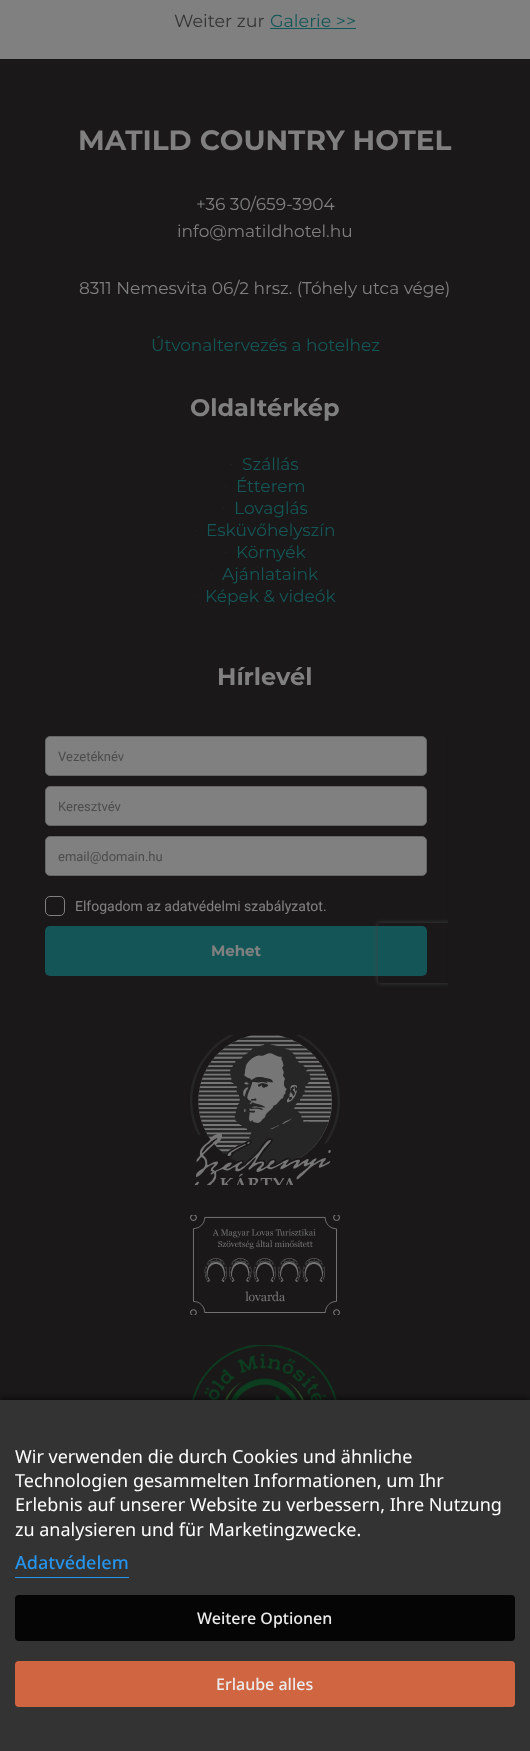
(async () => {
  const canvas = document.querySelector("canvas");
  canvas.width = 530;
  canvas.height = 1751;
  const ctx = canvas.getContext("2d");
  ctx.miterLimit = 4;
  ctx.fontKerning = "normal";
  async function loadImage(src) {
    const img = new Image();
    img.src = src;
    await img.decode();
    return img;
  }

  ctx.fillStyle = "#808080";
  ctx.fillRect(0, 0, 530, 1751);
  for (const [x, y, w, h, color] of [
    [270, 28, 86, 1, "#155758"],
    [0, 59, 530, 1341, "#1a1818"],
    [231, 464, 1, 1, "#192929"],
    [225, 486, 1, 1, "#192929"],
    [223, 508, 1, 1, "#192929"],
    [195, 530, 1, 1, "#192929"],
    [225, 552, 1, 1, "#192929"],
    [211, 574, 1, 1, "#192929"],
    [194, 596, 1, 1, "#192929"],
  ]) {
    ctx.fillStyle = color;
    ctx.fillRect(x, y, w, h);
  }
  ctx.drawImage(await loadImage("img/1.png"), 45, 736, 403, 251);
  ctx.drawImage(await loadImage("img/2.png"), 190, 1035, 150, 150);
  ctx.drawImage(await loadImage("img/3.png"), 190, 1215, 150, 100);
  ctx.drawImage(await loadImage("img/4.png"), 192, 1345, 145, 55);
  ctx.fillStyle = "rgba(0, 0, 0, 0.5)";
  ctx.filter = "blur(2.5px)";
  ctx.beginPath();
  ctx.rect(0, 1398, 530, 351);
  ctx.fill();
  ctx.filter = "none";
  ctx.fillStyle = "#333333";
  ctx.fillRect(0, 1400, 530, 351);
  ctx.fillStyle = "#2694eb";
  ctx.fillRect(15, 1577, 114, 1);
  ctx.fillStyle = "#050505";
  ctx.beginPath();
  ctx.roundRect(15, 1595, 500, 46, 4);
  ctx.fill();
  ctx.fillStyle = "#d06541";
  ctx.beginPath();
  ctx.roundRect(15, 1661, 500, 46, 4);
  ctx.fill();
  ctx.font = "17.5px Montserrat";
  ctx.fillStyle = "#333333";
  ctx.fillText("Weiter zur", 174, 27);
  ctx.fillStyle = "#155758";
  ctx.fillText("Galerie >>", 270, 27);
  ctx.font = "bold 28px Montserrat";
  ctx.fillStyle = "#808080";
  ctx.fillText("MATILD COUNTRY HOTEL", 78, 150);
  ctx.font = "17px Montserrat";
  for (const [text, x, y] of [
    ["+36 30/659-3904", 196, 210],
    ["info@matildhotel.hu", 177, 237],
    ["8311 Nemesvita 06/2 hrsz. (Tóhely utca vége)", 79, 294],
  ]) {
    ctx.fillText(text, x, y);
  }
  ctx.fillStyle = "#155758";
  ctx.fillText("Útvonaltervezés a hotelhez", 151, 351);
  ctx.font = "bold 24px Montserrat";
  ctx.fillStyle = "#808080";
  ctx.fillText("Oldaltérkép", 190, 416);
  ctx.font = "17px Montserrat";
  ctx.fillStyle = "#155758";
  for (const [text, x, y] of [
    ["Szállás", 242, 470],
    ["Étterem", 236, 492],
    ["Lovaglás", 234, 514],
    ["Esküvőhelyszín", 206, 536],
    ["Környék", 236, 558],
    ["Ajánlataink", 222, 580],
    ["Képek & videók", 205, 602],
  ]) {
    ctx.fillText(text, x, y);
  }
  ctx.font = "bold 24px Montserrat";
  ctx.fillStyle = "#808080";
  ctx.fillText("Hírlevél", 217, 685);
  ctx.font = "18px Noto Sans";
  ctx.fillStyle = "#ffffff";
  for (const [text, x, y] of [
    ["Wir verwenden die durch Cookies und ähnliche", 15, 1463],
    ["Technologien gesammelten Informationen, um Ihr", 15, 1487],
    ["Erlebnis auf unserer Website zu verbessern, Ihre Nutzung", 15, 1511],
    ["zu analysieren und für Marketingzwecke.", 15, 1536],
  ]) {
    ctx.fillText(text, x, y);
  }
  ctx.font = "500 18px Noto Sans";
  ctx.fillStyle = "#2694eb";
  ctx.fillText("Adatvédelem", 15, 1569);
  ctx.font = "500 16px Noto Sans";
  ctx.fillStyle = "#ebebeb";
  ctx.fillText("Weitere Optionen", 197, 1624);
  ctx.fillText("Erlaube alles", 216, 1690);
})();
